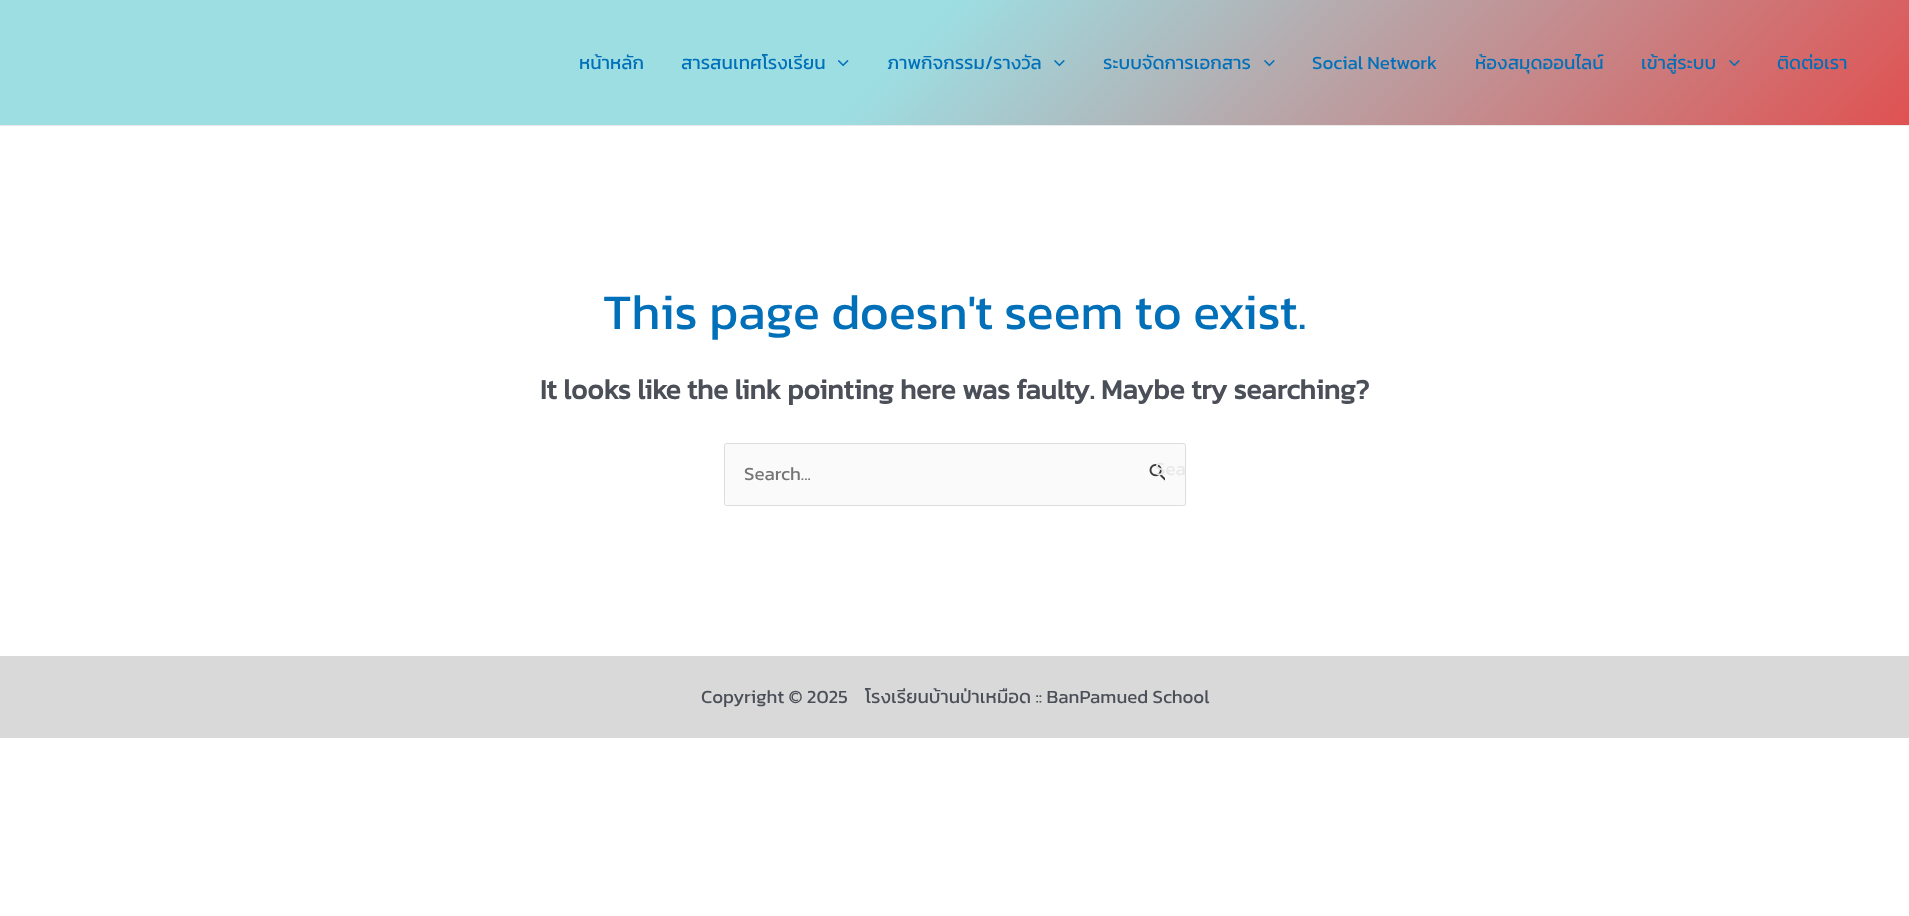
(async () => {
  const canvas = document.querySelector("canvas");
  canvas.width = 1909;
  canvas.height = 916;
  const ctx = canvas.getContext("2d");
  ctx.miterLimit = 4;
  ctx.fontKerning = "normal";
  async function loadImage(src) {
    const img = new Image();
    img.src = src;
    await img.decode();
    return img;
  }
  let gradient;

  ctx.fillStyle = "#ffffff";
  ctx.fillRect(0, 0, 1909, 916);
  gradient = ctx.createLinearGradient(446, -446, 1464, 571);
  gradient.addColorStop(0.47, "#9ddee3");
  gradient.addColorStop(1, "#e05151");
  ctx.fillStyle = gradient;
  ctx.fillRect(0, 0, 1909, 125);
  ctx.fillStyle = "#eaeaea";
  ctx.fillRect(0, 125, 1909, 1);
  ctx.drawImage(await loadImage("img/1.png"), 838, 60, 11, 7);
  ctx.drawImage(await loadImage("img/2.png"), 1054, 60, 11, 7);
  ctx.drawImage(await loadImage("img/3.png"), 1264, 60, 11, 7);
  ctx.drawImage(await loadImage("img/4.png"), 1729, 60, 11, 7);
  ctx.fillStyle = "#fafafa";
  ctx.beginPath();
  ctx.roundRect(724.5, 443.5, 461, 62, 2);
  ctx.fill();
  ctx.strokeStyle = "#dddddd";
  ctx.stroke();
  ctx.drawImage(await loadImage("img/5.png"), 1149, 464, 16, 17);
  ctx.fillStyle = "#d9d9d9";
  ctx.fillRect(0, 656, 1909, 82);
  ctx.font = "18.75px Kanit";
  ctx.fillStyle = "#0170b9";
  for (const [text, x, y] of [
    ["หน้าหลัก", 579, 69],
    ["สารสนเทศโรงเรียน", 681, 69],
    ["ภาพกิจกรรม/รางวัล", 887, 69],
    ["ระบบจัดการเอกสาร", 1103, 69],
    ["Social Network", 1312, 69],
    ["ห้องสมุดออนไลน์", 1475, 69],
    ["เข้าสู่ระบบ", 1641, 69],
    ["ติดต่อเรา", 1777, 69],
  ]) {
    ctx.fillText(text, x, y);
  }
  ctx.font = "50px Kanit";
  ctx.fillText("This page doesn't seem to exist.", 603, 329);
  ctx.font = "bold 28.1px Kanit";
  ctx.fillStyle = "#4b4f58";
  ctx.fillText("It looks like the link pointing here was faulty. Maybe try searching?", 540, 399);
  ctx.font = "18.75px Kanit";
  ctx.fillStyle = "#757575";
  ctx.fillText("Search...", 744, 480);
  ctx.fillStyle = "#e8e8e8";
  ctx.fillText("Sea", 1155, 475);
  ctx.fillStyle = "#4b4f58";
  ctx.fillText("Copyright © 2025    โรงเรียนบ้านป่าเหมือด :: BanPamued School", 701, 703);
})();
